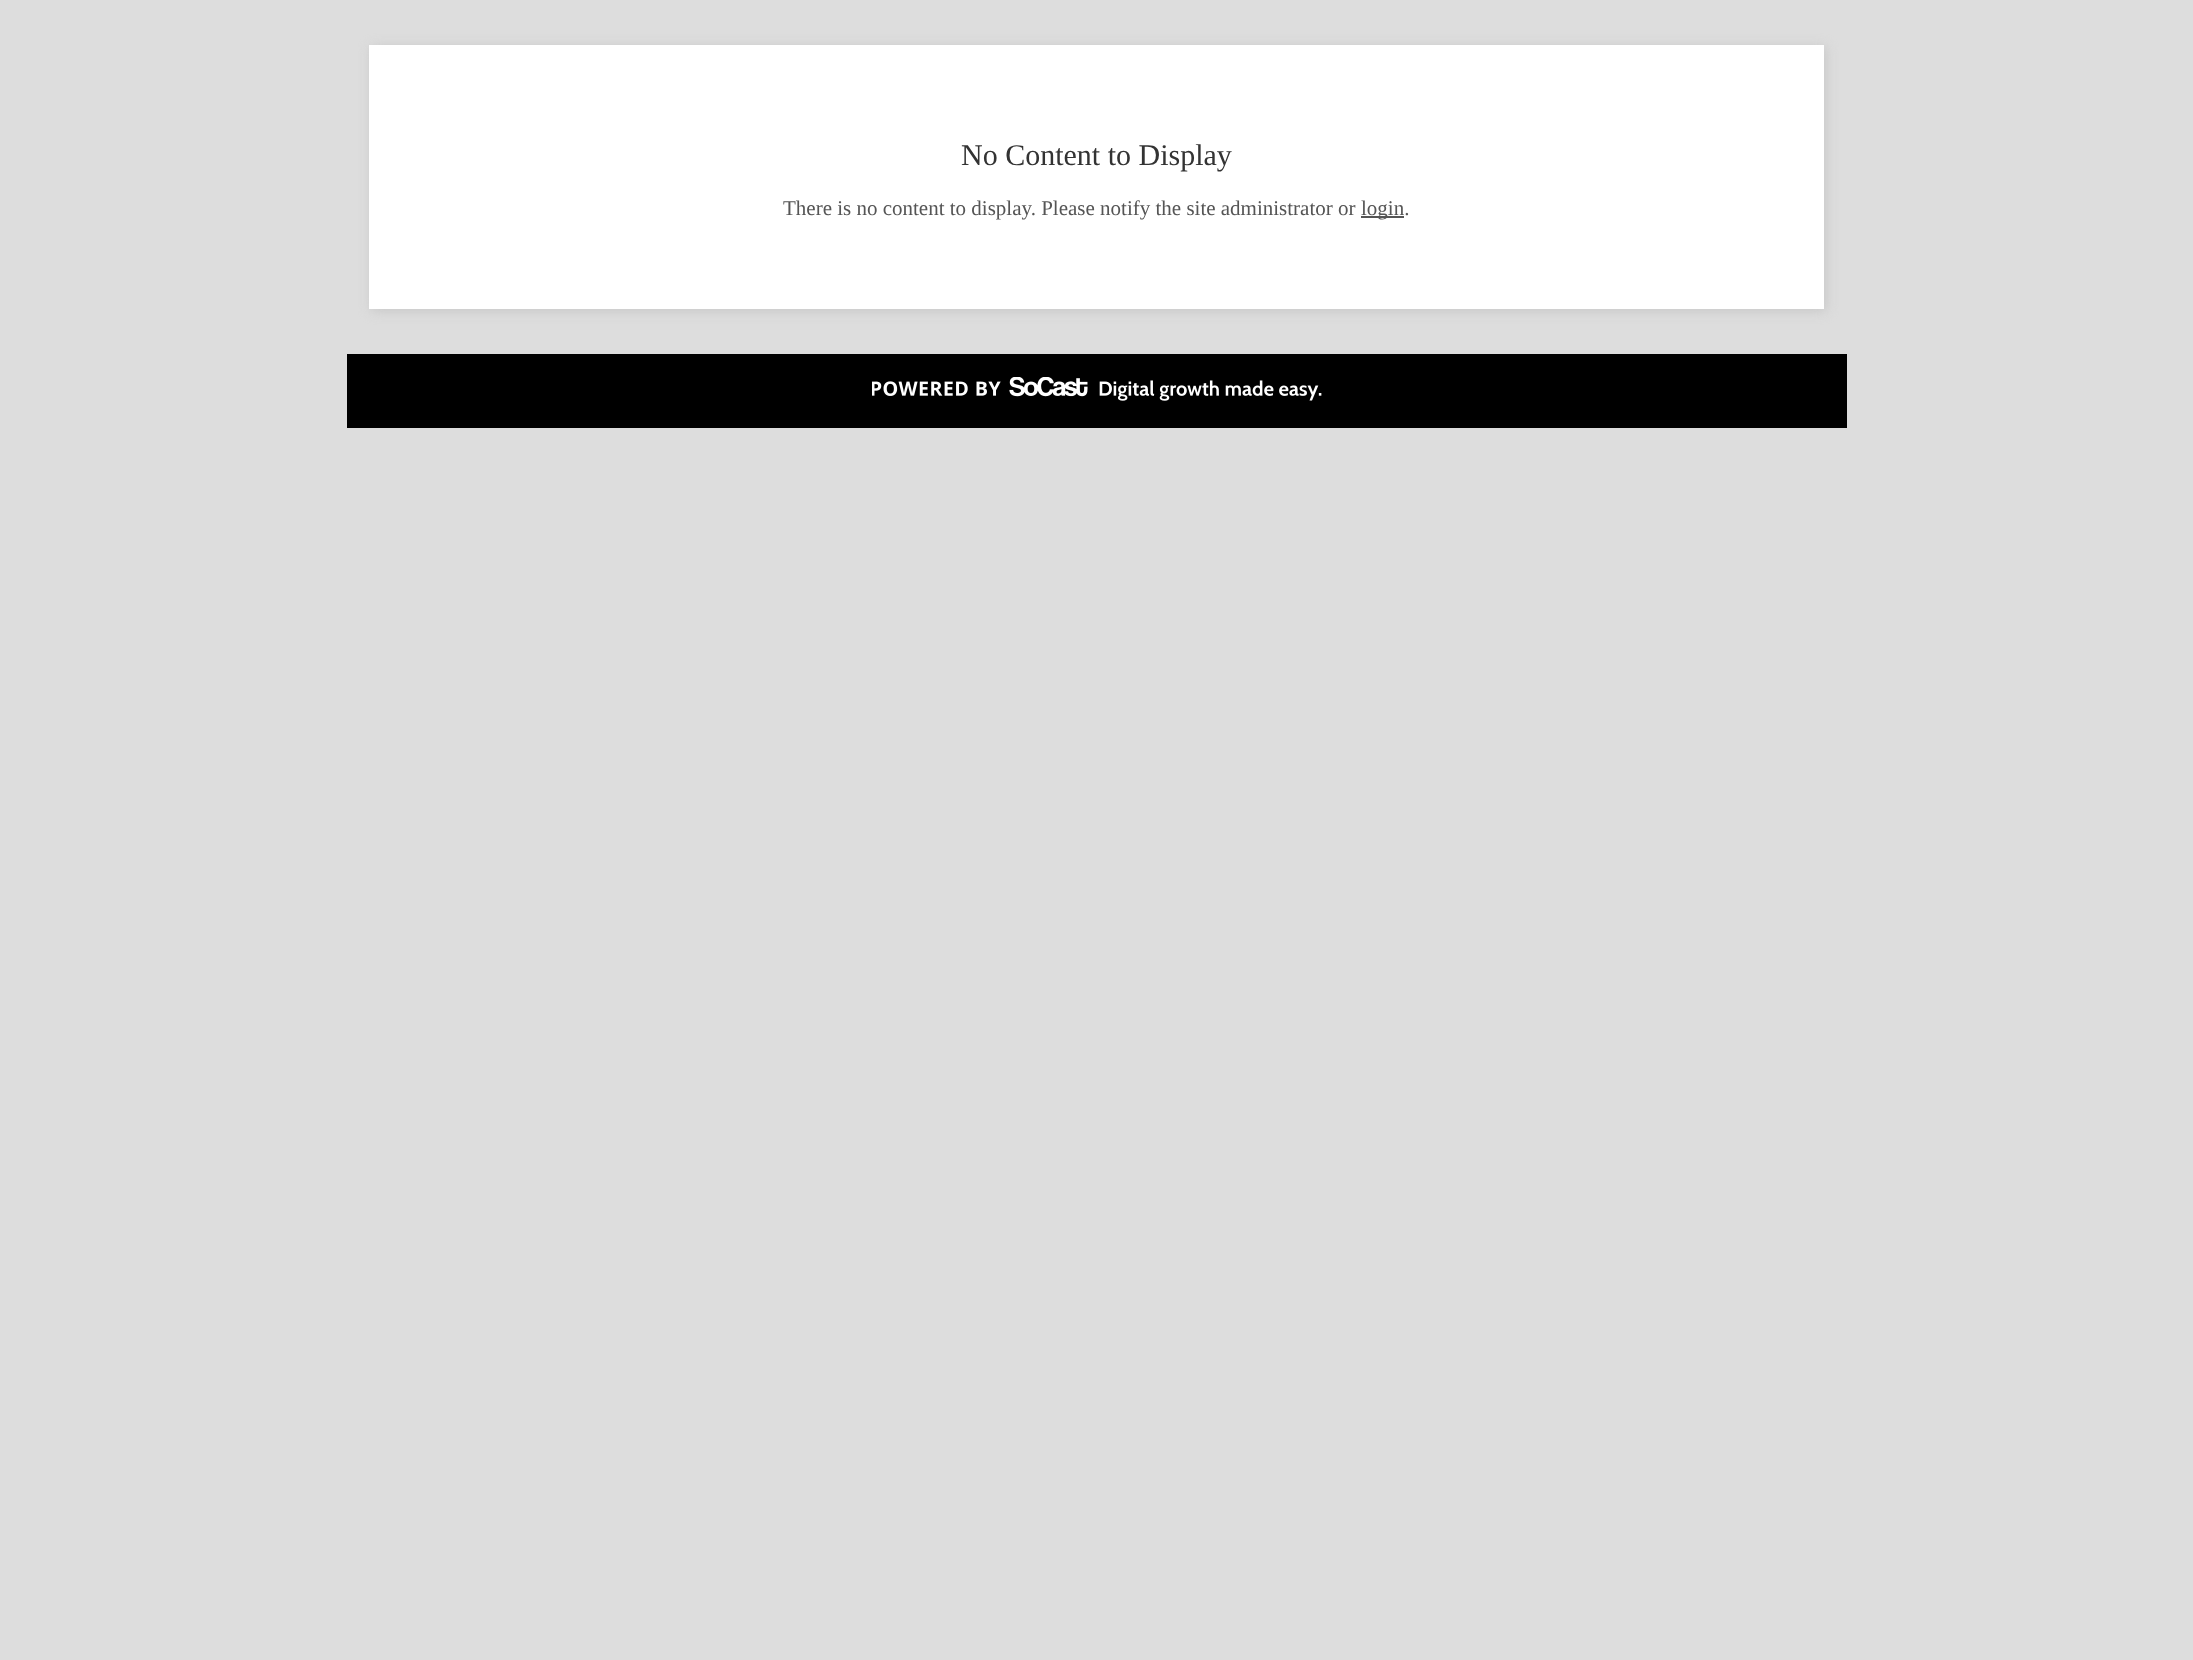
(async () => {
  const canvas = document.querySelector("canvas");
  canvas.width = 2193;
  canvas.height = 1660;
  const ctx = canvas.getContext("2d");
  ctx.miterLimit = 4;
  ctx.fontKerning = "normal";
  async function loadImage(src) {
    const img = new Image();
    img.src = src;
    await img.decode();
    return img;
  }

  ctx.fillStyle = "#dddddd";
  ctx.fillRect(0, 0, 2193, 1660);
  ctx.fillStyle = "#c7c7c7";
  ctx.filter = "blur(6px)";
  ctx.beginPath();
  ctx.rect(371, 47, 1455, 264);
  ctx.fill();
  ctx.filter = "none";
  for (const [x, y, w, h, color] of [
    [369, 45, 1455, 264, "#ffffff"],
    [1361, 216, 43, 2, "#555555"],
    [347, 354, 1500, 74, "#000000"],
  ]) {
    ctx.fillStyle = color;
    ctx.fillRect(x, y, w, h);
  }
  ctx.drawImage(await loadImage("img/1.png"), 872, 377, 450, 24);
  ctx.font = "30px Liberation Serif";
  ctx.fillStyle = "#333333";
  ctx.fillText("No Content to Display", 961, 165);
  ctx.font = "21px Liberation Serif";
  ctx.fillStyle = "#555555";
  ctx.fillText("There is no content to display. Please notify the site administrator or", 783, 215);
  ctx.fillText("login.", 1361, 215);
})();
